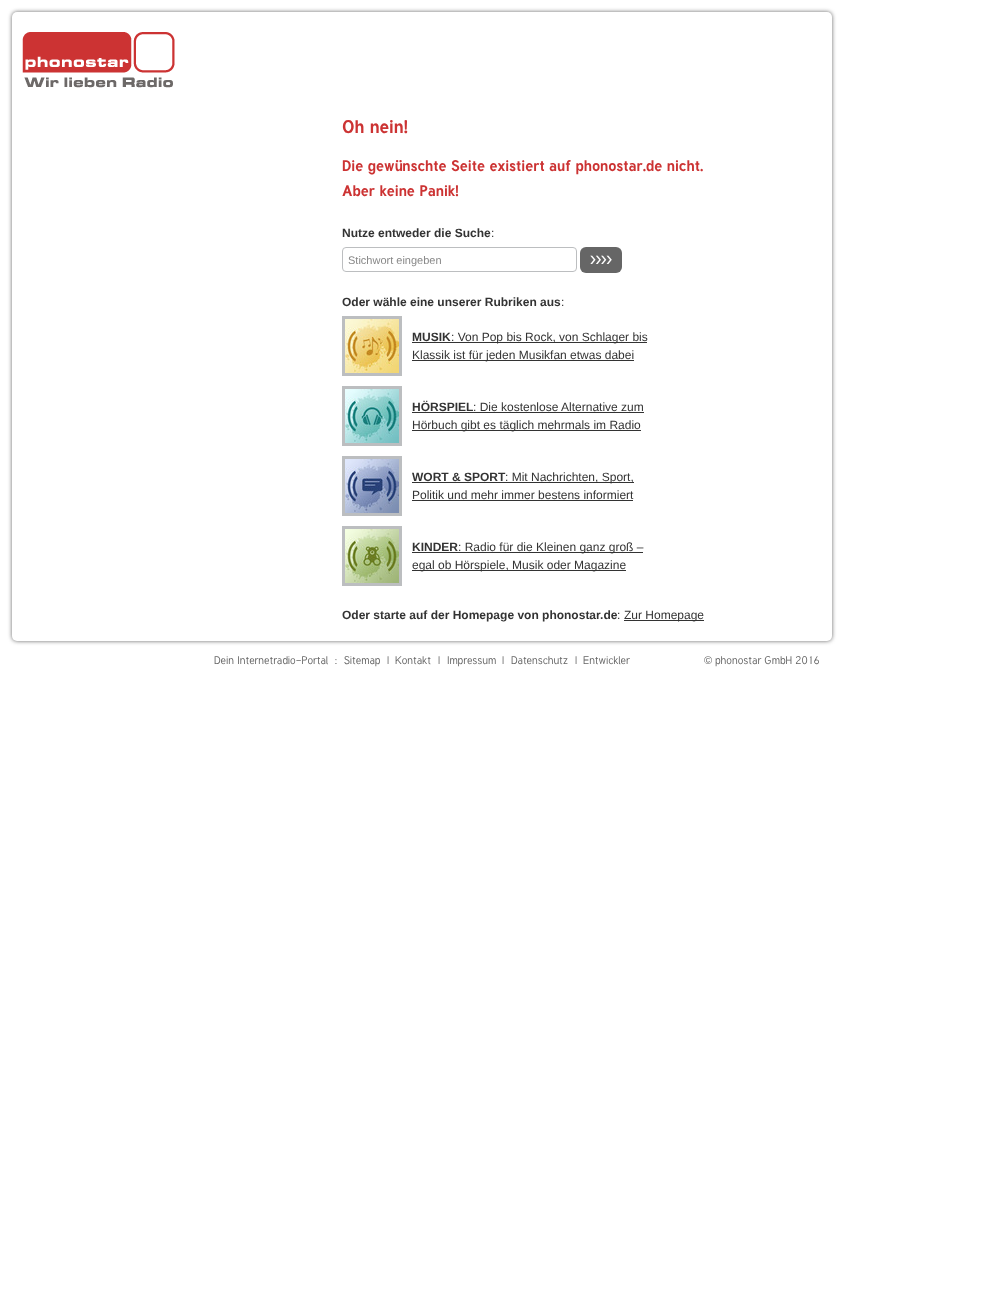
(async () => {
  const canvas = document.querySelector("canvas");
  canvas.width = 1005;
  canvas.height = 1314;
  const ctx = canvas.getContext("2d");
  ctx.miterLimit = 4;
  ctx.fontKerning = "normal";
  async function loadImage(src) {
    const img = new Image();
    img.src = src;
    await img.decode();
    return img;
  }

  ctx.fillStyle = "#ffffff";
  ctx.fillRect(0, 0, 1005, 1314);
  ctx.fillStyle = "#666666";
  ctx.filter = "blur(2px)";
  ctx.beginPath();
  ctx.roundRect(12, 12, 820, 629, 5);
  ctx.fill();
  ctx.filter = "none";
  ctx.fillStyle = "#ffffff";
  ctx.beginPath();
  ctx.roundRect(12, 12, 820, 629, 5);
  ctx.fill();
  ctx.drawImage(await loadImage("img/1.png"), 22, 32, 153, 56);
  ctx.beginPath();
  ctx.roundRect(342.5, 247.5, 234, 24, 3.5);
  ctx.strokeStyle = "#bcbec0";
  ctx.stroke();
  ctx.fillStyle = "#666666";
  ctx.beginPath();
  ctx.roundRect(580, 247, 42, 26, 6);
  ctx.fill();
  ctx.lineWidth = 3;
  ctx.strokeRect(343.5, 317.5, 57, 57);
  ctx.drawImage(await loadImage("img/2.png"), 345, 319, 54, 54);
  ctx.fillStyle = "#333333";
  ctx.fillRect(412, 342, 235, 1);
  ctx.fillRect(412, 360, 222, 1);
  ctx.strokeRect(343.5, 387.5, 57, 57);
  ctx.drawImage(await loadImage("img/3.png"), 345, 389, 54, 54);
  ctx.fillRect(412, 412, 232, 1);
  ctx.fillRect(412, 430, 229, 1);
  ctx.strokeRect(343.5, 457.5, 57, 57);
  ctx.drawImage(await loadImage("img/4.png"), 345, 459, 54, 54);
  ctx.fillRect(412, 482, 222, 1);
  ctx.fillRect(412, 500, 221, 1);
  ctx.strokeRect(343.5, 527.5, 57, 57);
  ctx.drawImage(await loadImage("img/5.png"), 345, 529, 54, 54);
  for (const [x, y, w, h, color] of [
    [412, 552, 231, 1, "#333333"],
    [412, 570, 214, 1, "#333333"],
    [624, 620, 80, 1, "#333333"],
  ]) {
    ctx.fillStyle = color;
    ctx.fillRect(x, y, w, h);
  }
  ctx.font = "bold 18px Tuffy";
  ctx.fillStyle = "#cc3333";
  ctx.fillText("Oh nein!", 342, 133);
  ctx.font = "bold 15px Tuffy";
  ctx.fillText("Die gewünschte Seite existiert auf phonostar.de nicht.", 342, 171);
  ctx.fillText("Aber keine Panik!", 342, 196);
  ctx.font = "bold 12px Liberation Sans";
  ctx.fillStyle = "#333333";
  ctx.fillText("Nutze entweder die Suche", 342, 237);
  ctx.font = "12px Liberation Sans";
  ctx.fillText(":", 491, 237);
  ctx.font = "11px Liberation Sans";
  ctx.fillStyle = "#888888";
  ctx.fillText("Stichwort eingeben", 348, 264);
  ctx.font = "bold 13px 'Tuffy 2'";
  ctx.fillStyle = "#ffffff";
  ctx.fillText("››››", 590, 264);
  ctx.font = "bold 12px Liberation Sans";
  ctx.fillStyle = "#333333";
  ctx.fillText("Oder wähle eine unserer Rubriken aus", 342, 306);
  ctx.font = "12px Liberation Sans";
  ctx.fillText(":", 561, 306);
  ctx.font = "bold 12px Liberation Sans";
  ctx.fillText("MUSIK", 412, 341);
  ctx.font = "12px Liberation Sans";
  ctx.fillText(": Von Pop bis Rock, von Schlager bis", 451, 341);
  ctx.fillText("Klassik ist für jeden Musikfan etwas dabei", 412, 359);
  ctx.font = "bold 12px Liberation Sans";
  ctx.fillText("HÖRSPIEL", 412, 411);
  ctx.font = "12px Liberation Sans";
  ctx.fillText(": Die kostenlose Alternative zum", 473, 411);
  ctx.fillText("Hörbuch gibt es täglich mehrmals im Radio", 412, 429);
  ctx.font = "bold 12px Liberation Sans";
  ctx.fillText("WORT & SPORT", 412, 481);
  ctx.font = "12px Liberation Sans";
  ctx.fillText(": Mit Nachrichten, Sport,", 505, 481);
  ctx.fillText("Politik und mehr immer bestens informiert", 412, 499);
  ctx.font = "bold 12px Liberation Sans";
  ctx.fillText("KINDER", 412, 551);
  ctx.font = "12px Liberation Sans";
  ctx.fillText(": Radio für die Kleinen ganz groß –", 458, 551);
  ctx.fillText("egal ob Hörspiele, Musik oder Magazine", 412, 569);
  ctx.font = "bold 12px Liberation Sans";
  ctx.fillText("Oder starte auf der Homepage von phonostar.de", 342, 619);
  ctx.font = "12px Liberation Sans";
  ctx.fillText(":", 617, 619);
  ctx.fillText("Zur Homepage", 624, 619);
  ctx.font = "11px Tuffy";
  ctx.fillStyle = "#666666";
  for (const [text, x, y] of [
    ["Dein Internetradio-Portal  :", 214, 664],
    ["Sitemap", 344, 664],
    ["|", 387, 664],
    ["Kontakt", 395, 664],
    ["|", 438, 664],
    ["Impressum", 447, 664],
    ["|", 502, 664],
    ["Datenschutz", 511, 664],
    ["|", 575, 664],
    ["Entwickler", 583, 664],
  ]) {
    ctx.fillText(text, x, y);
  }
  ctx.font = "11px Liberation Sans";
  ctx.fillText("©", 704, 664);
  ctx.font = "11px Tuffy";
  ctx.fillText("phonostar GmbH 2016", 715, 664);
})();
